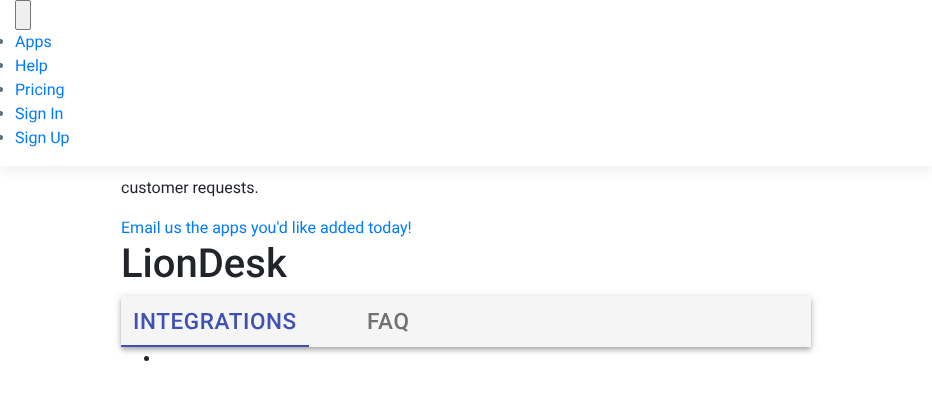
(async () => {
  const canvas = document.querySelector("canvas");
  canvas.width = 932;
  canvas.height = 411;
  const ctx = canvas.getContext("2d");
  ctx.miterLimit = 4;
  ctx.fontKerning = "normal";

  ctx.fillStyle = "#ffffff";
  ctx.fillRect(0, 0, 932, 411);
  ctx.fillStyle = "rgba(79, 79, 87, 0.1)";
  ctx.filter = "blur(7px)";
  ctx.beginPath();
  ctx.rect(0, 4, 932, 166);
  ctx.fill();
  ctx.filter = "none";
  ctx.fillStyle = "#ffffff";
  ctx.fillRect(0, 0, 932, 166);
  ctx.fillStyle = "#efefef";
  ctx.beginPath();
  ctx.roundRect(15.5, 0.5, 15, 29, 1.5);
  ctx.fill();
  ctx.strokeStyle = "#767676";
  ctx.stroke();
  ctx.fillStyle = "#617180";
  ctx.beginPath();
  ctx.arc(0.5, 41.5, 2.5, 0, Math.PI * 2);
  ctx.fill();
  ctx.beginPath();
  ctx.arc(0.5, 65.5, 2.5, 0, Math.PI * 2);
  ctx.fill();
  ctx.beginPath();
  ctx.arc(0.5, 89.5, 2.5, 0, Math.PI * 2);
  ctx.fill();
  ctx.beginPath();
  ctx.arc(0.5, 113.5, 2.5, 0, Math.PI * 2);
  ctx.fill();
  ctx.beginPath();
  ctx.arc(0.5, 137.5, 2.5, 0, Math.PI * 2);
  ctx.fill();
  ctx.fillStyle = "rgba(0, 0, 0, 0.12)";
  ctx.filter = "blur(5px)";
  ctx.beginPath();
  ctx.rect(121, 297, 690, 51);
  ctx.fill();
  ctx.filter = "none";
  ctx.fillStyle = "rgba(0, 0, 0, 0.14)";
  ctx.filter = "blur(2.5px)";
  ctx.beginPath();
  ctx.rect(121, 300, 690, 51);
  ctx.fill();
  ctx.filter = "none";
  ctx.fillStyle = "rgba(0, 0, 0, 0.2)";
  ctx.filter = "blur(2px)";
  ctx.beginPath();
  ctx.rect(122, 299, 688, 49);
  ctx.fill();
  ctx.filter = "none";
  ctx.fillStyle = "#f5f5f5";
  ctx.fillRect(121, 296, 690, 51);
  ctx.fillStyle = "#3f51b5";
  ctx.fillRect(121, 345, 188, 2);
  ctx.fillStyle = "#212529";
  ctx.beginPath();
  ctx.arc(146.5, 358.5, 2.5, 0, Math.PI * 2);
  ctx.fill();
  ctx.font = "16px Roboto";
  ctx.fillStyle = "#007bff";
  for (const [text, x, y] of [
    ["Apps", 15, 47],
    ["Help", 15, 71],
    ["Pricing", 15, 95],
    ["Sign In", 15, 119],
    ["Sign Up", 15, 143],
  ]) {
    ctx.fillText(text, x, y);
  }
  ctx.fillStyle = "#212529";
  ctx.fillText("customer requests.", 121, 193);
  ctx.fillStyle = "#007bff";
  ctx.fillText("Email us the apps you'd like added today!", 121, 233);
  ctx.font = "500 40px Roboto";
  ctx.fillStyle = "#212529";
  ctx.fillText("LionDesk", 121, 277);
  ctx.letterSpacing = "0.6px";
  ctx.font = "500 22.5px Roboto";
  ctx.fillStyle = "#3f51b5";
  ctx.fillText("INTEGRATIONS", 133, 329);
  ctx.fillStyle = "#717171";
  ctx.fillText("FAQ", 367, 329);
})();
